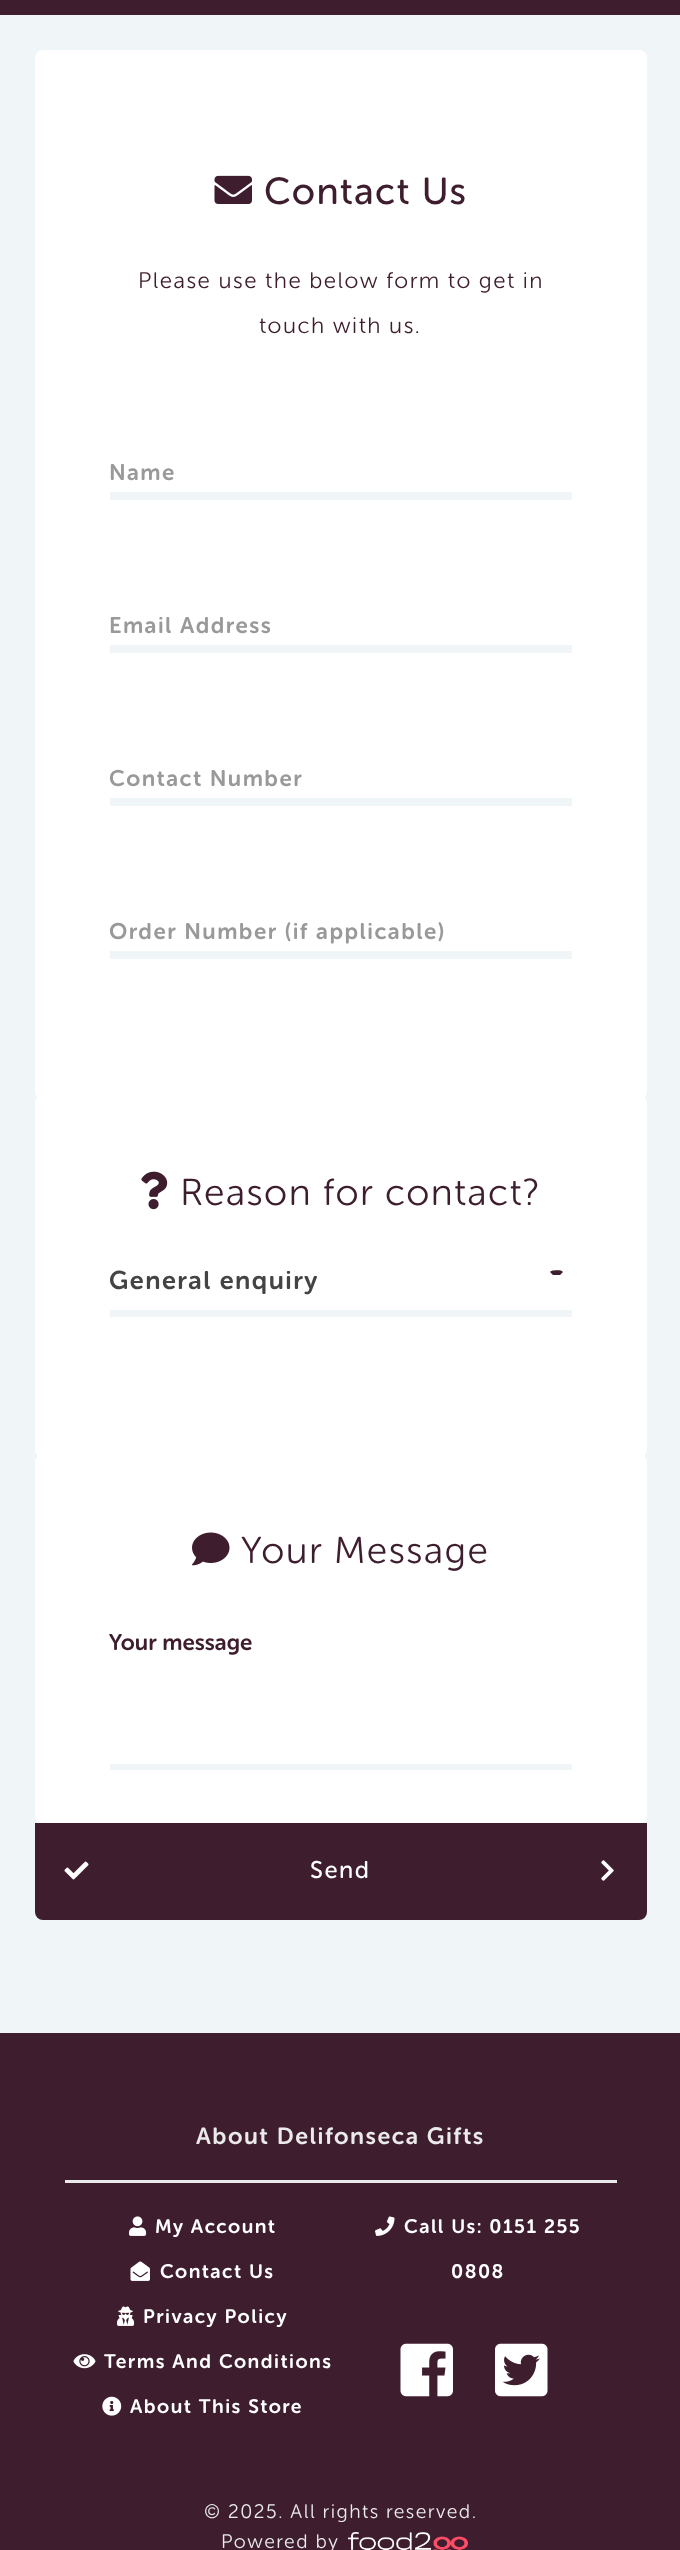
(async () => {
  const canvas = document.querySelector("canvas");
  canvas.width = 680;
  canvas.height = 2550;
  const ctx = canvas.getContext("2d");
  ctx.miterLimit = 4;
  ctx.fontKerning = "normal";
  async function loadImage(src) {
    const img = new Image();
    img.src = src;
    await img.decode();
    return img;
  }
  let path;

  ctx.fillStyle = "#f0f5f7";
  ctx.fillRect(0, 0, 680, 2550);
  ctx.fillStyle = "#3e1e2e";
  ctx.fillRect(0, 0, 680, 15);
  ctx.fillStyle = "#ffffff";
  ctx.beginPath();
  ctx.roundRect(35, 50, 612, 1050, 8);
  ctx.fill();
  ctx.drawImage(await loadImage("img/1.png"), 214, 175, 38, 29);
  for (const [x, y, w, h, color] of [
    [110, 492, 462, 8, "#f0f5f7"],
    [110, 645, 462, 8, "#f0f5f7"],
    [110, 798, 462, 8, "#f0f5f7"],
    [110, 951, 462, 8, "#f0f5f7"],
  ]) {
    ctx.fillStyle = color;
    ctx.fillRect(x, y, w, h);
  }
  ctx.fillStyle = "#ffffff";
  ctx.beginPath();
  ctx.roundRect(35, 1095, 612, 363, 8);
  ctx.fill();
  ctx.drawImage(await loadImage("img/2.png"), 141, 1171, 27, 39);
  ctx.fillStyle = "#f0f5f7";
  ctx.fillRect(110, 1310, 462, 7);
  ctx.fillStyle = "#3e1e2e";
  path = new Path2D("M553.5 1270.5C556.5 1270.5 560.5 1269.5 563 1272L560 1275H553L550 1272C551 1271 552 1270.5 553.5 1270.5Z");
  ctx.fill(path);
  ctx.fillStyle = "#ffffff";
  ctx.beginPath();
  ctx.roundRect(35, 1454, 612, 370, 8);
  ctx.fill();
  ctx.drawImage(await loadImage("img/3.png"), 192, 1532, 38, 34);
  ctx.fillStyle = "#f0f5f7";
  ctx.fillRect(110, 1764, 462, 6);
  ctx.fillStyle = "#3e1e2e";
  ctx.beginPath();
  ctx.roundRect(35, 1823, 612, 97, [0, 0, 8, 8]);
  ctx.fill();
  ctx.drawImage(await loadImage("img/4.png"), 64, 1861, 25, 19);
  ctx.drawImage(await loadImage("img/5.png"), 601, 1860, 13, 21);
  ctx.fillRect(0, 2033, 680, 517);
  ctx.fillStyle = "#eaeaea";
  ctx.fillRect(65, 2180, 552, 3);
  ctx.drawImage(await loadImage("img/6.png"), 129, 2216, 18, 20);
  ctx.drawImage(await loadImage("img/7.png"), 375, 2216, 20, 20);
  ctx.drawImage(await loadImage("img/8.png"), 130, 2261, 20, 20);
  ctx.drawImage(await loadImage("img/9.png"), 117, 2306, 18, 20);
  ctx.drawImage(await loadImage("img/10.png"), 73, 2354, 23, 15);
  ctx.drawImage(await loadImage("img/11.png"), 400, 2343, 53, 54);
  ctx.drawImage(await loadImage("img/12.png"), 495, 2343, 53, 54);
  ctx.drawImage(await loadImage("img/13.png"), 102, 2396, 20, 20);
  ctx.drawImage(await loadImage("img/14.png"), 348, 2532, 120, 18);
  ctx.letterSpacing = "1.5px";
  ctx.font = "37.5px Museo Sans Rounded";
  ctx.fillStyle = "#3e1e2e";
  ctx.fillText("Contact Us", 264, 204);
  ctx.font = "300 22.5px Museo Sans Rounded";
  ctx.fillText("Please use the below form to get in", 138, 288);
  ctx.fillText("touch with us.", 259, 333);
  ctx.font = "600 22.5px Museo Sans Rounded";
  ctx.fillStyle = "#999999";
  for (const [text, x, y] of [
    ["Name", 109, 480],
    ["Email Address", 109, 633],
    ["Contact Number", 109, 786],
    ["Order Number (if applicable)", 109, 939],
  ]) {
    ctx.fillText(text, x, y);
  }
  ctx.font = "300 37.5px Museo Sans Rounded";
  ctx.fillStyle = "#3e1e2e";
  ctx.fillText("Reason for contact?", 180, 1205);
  ctx.font = "600 25.5px Museo Sans Rounded";
  ctx.fillStyle = "#444444";
  ctx.fillText("General enquiry", 109, 1289);
  ctx.font = "300 37.5px Museo Sans Rounded";
  ctx.fillStyle = "#3e1e2e";
  ctx.fillText("Your Message", 241, 1563);
  ctx.letterSpacing = "0px";
  ctx.font = "600 22.5px Museo Sans Rounded";
  ctx.fillText("Your message", 109, 1650);
  ctx.letterSpacing = "1.5px";
  ctx.font = "24px Museo Sans Rounded";
  ctx.fillStyle = "#ffffff";
  ctx.fillText("Send", 310, 1878);
  ctx.font = "600 23.4px Museo Sans Rounded";
  ctx.fillStyle = "#eaeaea";
  ctx.fillText("About Delifonseca Gifts", 196, 2144);
  ctx.font = "600 19.5px Museo Sans Rounded";
  ctx.fillStyle = "#ffffff";
  for (const [text, x, y] of [
    ["My Account", 155, 2233],
    ["Call Us: 0151 255", 404, 2233],
    ["0808", 451, 2278],
    ["Contact Us", 160, 2278],
    ["Privacy Policy", 143, 2323],
    ["Terms And Conditions", 104, 2368],
    ["About This Store", 130, 2413],
  ]) {
    ctx.fillText(text, x, y);
  }
  ctx.font = "300 19.5px Museo Sans Rounded";
  ctx.fillStyle = "#eaeaea";
  ctx.fillText("© 2025. All rights reserved.", 204, 2518);
  ctx.fillText("Powered by", 221, 2548);
})();
